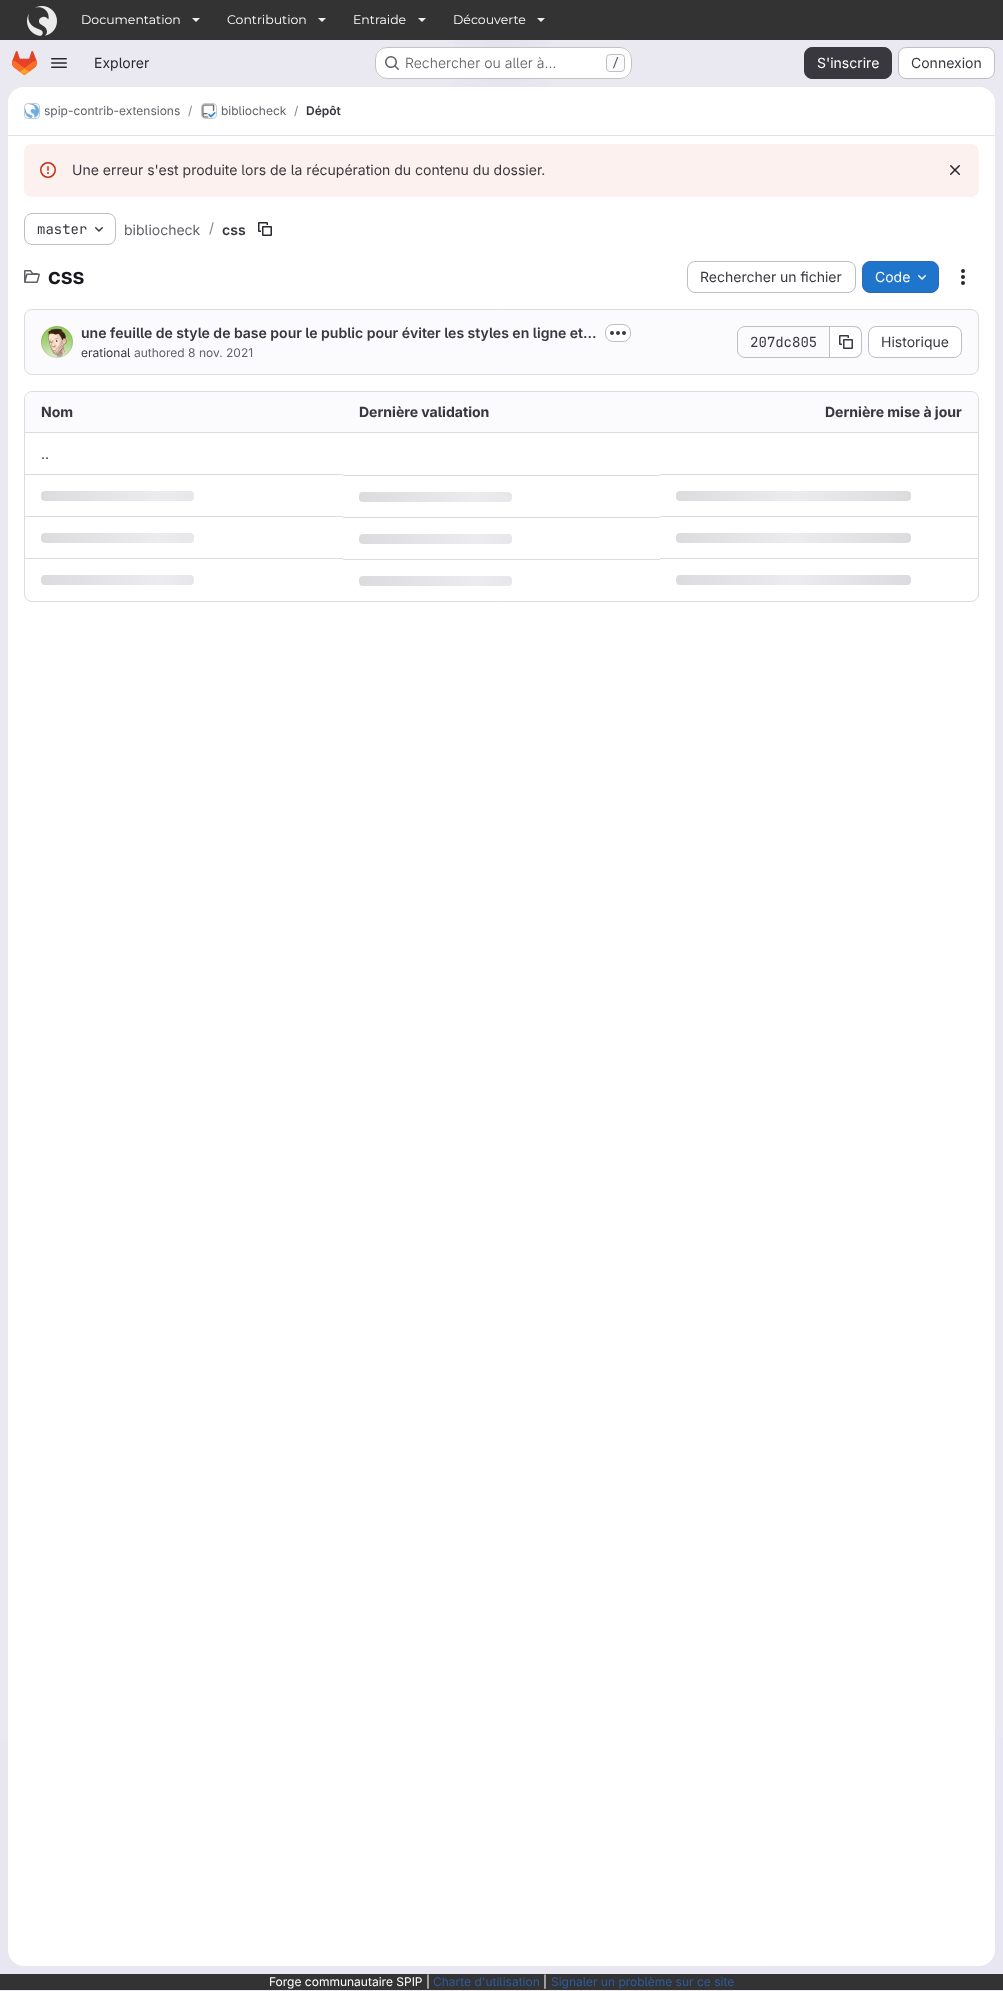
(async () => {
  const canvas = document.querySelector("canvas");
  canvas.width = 1003;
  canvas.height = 1991;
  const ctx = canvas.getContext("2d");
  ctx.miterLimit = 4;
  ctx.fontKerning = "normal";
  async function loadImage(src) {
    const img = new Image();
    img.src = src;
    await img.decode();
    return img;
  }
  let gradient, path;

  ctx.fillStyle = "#eae9f2";
  ctx.fillRect(0, 0, 1003, 1991);
  gradient = ctx.createLinearGradient(687, 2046, 316, -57);
  gradient.addColorStop(0, "#e8e6f0");
  gradient.addColorStop(0.7, "#eae9f2");
  ctx.fillStyle = gradient;
  ctx.fillRect(0, 1737, 1003, 237);
  gradient = ctx.createRadialGradient(502, -0.25, 0, 502, -0.25, 502);
  gradient.addColorStop(0, "#e4e2ed");
  gradient.addColorStop(0.14, "rgba(228, 226, 237, 0)");
  ctx.fillStyle = gradient;
  ctx.beginPath();
  ctx.rect(453, 40, 98, 47);
  ctx.save();
  ctx.clip();
  ctx.scale(1, 1991 / 502);
  ctx.fillRect(0, 0, 1003, 502);
  ctx.restore();
  gradient = ctx.createRadialGradient(502, -0.25, 0, 502, -0.25, 502);
  gradient.addColorStop(0, "#e4e2ec");
  gradient.addColorStop(0.1, "rgba(228, 226, 236, 0)");
  ctx.fillStyle = gradient;
  ctx.beginPath();
  ctx.rect(484, 40, 36, 41);
  ctx.save();
  ctx.clip();
  ctx.scale(1, 1991 / 502);
  ctx.fillRect(0, 0, 1003, 502);
  ctx.restore();
  ctx.fillStyle = "#333333";
  ctx.fillRect(0, 0, 1003, 40);
  ctx.drawImage(await loadImage("img/1.png"), 27, 6, 30, 30);
  ctx.fillStyle = "#eeeeee";
  path = new Path2D("M192 18H200L196 22Z");
  ctx.fill(path);
  path = new Path2D("M318 18H326L322 22Z");
  ctx.fill(path);
  path = new Path2D("M418 18H426L422 22Z");
  ctx.fill(path);
  path = new Path2D("M537 18H545L541 22Z");
  ctx.fill(path);
  ctx.drawImage(await loadImage("img/2.png"), 12, 51, 25, 24);
  ctx.drawImage(await loadImage("img/3.png"), 51, 58, 16, 10);
  ctx.fillStyle = "#ffffff";
  ctx.beginPath();
  ctx.roundRect(375, 47, 257, 32, 12);
  ctx.fill();
  ctx.beginPath();
  ctx.roundRect(375.5, 47.5, 256, 31, 11.5);
  ctx.strokeStyle = "rgba(5, 5, 6, 0.24)";
  ctx.stroke();
  ctx.drawImage(await loadImage("img/4.png"), 385, 56, 14, 14);
  ctx.fillStyle = "#fbfafd";
  ctx.beginPath();
  ctx.roundRect(606.5, 54.5, 18, 17, 3.5);
  ctx.fill();
  ctx.strokeStyle = "#bfbfc3";
  ctx.stroke();
  ctx.fillStyle = "#3a383f";
  ctx.beginPath();
  ctx.roundRect(804.5, 47.5, 87, 31, 7.5);
  ctx.fill();
  ctx.strokeStyle = "#3a383f";
  ctx.stroke();
  ctx.fillStyle = "#ffffff";
  ctx.beginPath();
  ctx.roundRect(898.5, 47.5, 96, 31, 7.5);
  ctx.fill();
  ctx.strokeStyle = "#bfbfc3";
  ctx.stroke();
  ctx.beginPath();
  ctx.roundRect(8, 87, 987, 1879, 16);
  ctx.fill();
  ctx.beginPath();
  ctx.roundRect(8, 87, 987, 49, [16, 16, 0, 0]);
  ctx.fill();
  ctx.fillStyle = "#e1dfec";
  ctx.fillRect(8, 135, 987, 1);
  ctx.beginPath();
  ctx.roundRect(24.5, 103.5, 15, 15, 3.5);
  ctx.strokeStyle = "#dcdcde";
  ctx.stroke();
  ctx.drawImage(await loadImage("img/5.png"), 25, 104, 14, 14);
  ctx.beginPath();
  ctx.roundRect(24.5, 103.5, 15, 15, 3.5);
  ctx.strokeStyle = "rgba(5, 5, 6, 0.08)";
  ctx.stroke();
  ctx.beginPath();
  ctx.roundRect(201.5, 103.5, 15, 15, 3.5);
  ctx.strokeStyle = "#dcdcde";
  ctx.stroke();
  ctx.drawImage(await loadImage("img/6.png"), 202, 104, 14, 14);
  ctx.beginPath();
  ctx.roundRect(201.5, 103.5, 15, 15, 3.5);
  ctx.strokeStyle = "rgba(5, 5, 6, 0.08)";
  ctx.stroke();
  ctx.fillStyle = "#fcf1ef";
  ctx.beginPath();
  ctx.roundRect(24, 144, 955, 53, 8);
  ctx.fill();
  ctx.drawImage(await loadImage("img/7.png"), 40, 162, 16, 16);
  ctx.drawImage(await loadImage("img/8.png"), 950, 165, 10, 10);
  ctx.beginPath();
  ctx.roundRect(24.5, 213.5, 91, 31, 7.5);
  ctx.strokeStyle = "#bfbfc3";
  ctx.stroke();
  ctx.drawImage(await loadImage("img/9.png"), 95, 227, 8, 5);
  ctx.drawImage(await loadImage("img/10.png"), 258, 222, 14, 14);
  ctx.drawImage(await loadImage("img/11.png"), 24, 270, 16, 13);
  ctx.beginPath();
  ctx.roundRect(687.5, 261.5, 168, 31, 7.5);
  ctx.stroke();
  ctx.fillStyle = "#1f75cb";
  ctx.beginPath();
  ctx.roundRect(862.5, 261.5, 76, 31, 7.5);
  ctx.fill();
  ctx.strokeStyle = "#2f68b4";
  ctx.stroke();
  ctx.drawImage(await loadImage("img/12.png"), 918, 275, 8, 5);
  ctx.drawImage(await loadImage("img/13.png"), 961, 269, 4, 16);
  ctx.fillStyle = "#fbfafd";
  ctx.beginPath();
  ctx.roundRect(24.5, 309.5, 954, 65, 7.5);
  ctx.fill();
  ctx.strokeStyle = "#dcdcde";
  ctx.stroke();
  ctx.drawImage(await loadImage("img/14.png"), 41, 326, 32, 32);
  ctx.beginPath();
  ctx.arc(57, 342, 15.5, 0, Math.PI * 2);
  ctx.strokeStyle = "rgba(5, 5, 6, 0.08)";
  ctx.stroke();
  ctx.fillStyle = "#ffffff";
  ctx.beginPath();
  ctx.roundRect(605.5, 324.5, 25, 17, 7.5);
  ctx.fill();
  ctx.strokeStyle = "#bfbfc3";
  ctx.stroke();
  ctx.drawImage(await loadImage("img/15.png"), 610, 331, 16, 4);
  ctx.fillStyle = "#bfbfc3";
  path = new Path2D("M745 326H829V358H745C741 358 737 354 737 350V334C737 330 741 326 745 326ZM745 327H829V357H745C741 357 738 354 738 350V334C738 330 741 327 745 327Z");
  ctx.fill(path, "evenodd");
  ctx.fillStyle = "#ffffff";
  ctx.beginPath();
  ctx.roundRect(830, 327, 31, 30, [0, 7, 7, 0]);
  ctx.fill();
  ctx.fillStyle = "#bfbfc3";
  path = new Path2D("M830 326H854C858.5 326 862 329.5 862 334V350C862 354.5 858.5 358 854 358H830ZM830 327H854C858 327 861 330 861 334V350C861 354 858 357 854 357H830Z");
  ctx.fill(path, "evenodd");
  ctx.fillRect(829, 326, 1, 32);
  ctx.drawImage(await loadImage("img/16.png"), 839, 335, 14, 14);
  ctx.fillStyle = "#ffffff";
  ctx.beginPath();
  ctx.roundRect(868.5, 326.5, 93, 31, 7.5);
  ctx.fill();
  ctx.stroke();
  ctx.beginPath();
  ctx.roundRect(24.5, 391.5, 954, 210, 7.5);
  ctx.strokeStyle = "#dcdcde";
  ctx.stroke();
  ctx.fillStyle = "#fbfafd";
  ctx.beginPath();
  ctx.roundRect(25, 392, 318, 41, [7, 0, 0, 0]);
  ctx.fill();
  ctx.fillRect(343, 392, 317, 40);
  ctx.beginPath();
  ctx.roundRect(660, 392, 318, 41, [0, 7, 0, 0]);
  ctx.fill();
  ctx.fillStyle = "#dcdcde";
  ctx.fillRect(25, 432, 953, 1);
  ctx.fillRect(25, 474, 318, 1);
  gradient = ctx.createLinearGradient(41, 491, 276, 491);
  gradient.addColorStop(0, "#dcdcde");
  gradient.addColorStop(0.5, "#ececef");
  gradient.addColorStop(1, "#dcdcde");
  ctx.fillStyle = gradient;
  ctx.beginPath();
  ctx.roundRect(41, 491, 153, 10, 4);
  ctx.fill();
  ctx.fillStyle = "#dcdcde";
  ctx.fillRect(343, 475, 317, 1);
  gradient = ctx.createLinearGradient(359, 492, 594, 492);
  gradient.addColorStop(0, "#dcdcde");
  gradient.addColorStop(0.5, "#ececef");
  gradient.addColorStop(1, "#dcdcde");
  ctx.fillStyle = gradient;
  ctx.beginPath();
  ctx.roundRect(359, 492, 153, 10, 4);
  ctx.fill();
  ctx.fillStyle = "#dcdcde";
  ctx.fillRect(660, 474, 318, 1);
  gradient = ctx.createLinearGradient(676, 491, 911, 491);
  gradient.addColorStop(0, "#dcdcde");
  gradient.addColorStop(0.5, "#ececef");
  gradient.addColorStop(1, "#dcdcde");
  ctx.fillStyle = gradient;
  ctx.beginPath();
  ctx.roundRect(676, 491, 235, 10, 4);
  ctx.fill();
  ctx.fillStyle = "#dcdcde";
  ctx.fillRect(25, 516, 318, 1);
  gradient = ctx.createLinearGradient(41, 533, 276, 533);
  gradient.addColorStop(0, "#dcdcde");
  gradient.addColorStop(0.5, "#ececef");
  gradient.addColorStop(1, "#dcdcde");
  ctx.fillStyle = gradient;
  ctx.beginPath();
  ctx.roundRect(41, 533, 153, 10, 4);
  ctx.fill();
  ctx.fillStyle = "#dcdcde";
  ctx.fillRect(343, 517, 317, 1);
  gradient = ctx.createLinearGradient(359, 534, 594, 534);
  gradient.addColorStop(0, "#dcdcde");
  gradient.addColorStop(0.5, "#ececef");
  gradient.addColorStop(1, "#dcdcde");
  ctx.fillStyle = gradient;
  ctx.beginPath();
  ctx.roundRect(359, 534, 153, 10, 4);
  ctx.fill();
  ctx.fillStyle = "#dcdcde";
  ctx.fillRect(660, 516, 318, 1);
  gradient = ctx.createLinearGradient(676, 533, 911, 533);
  gradient.addColorStop(0, "#dcdcde");
  gradient.addColorStop(0.5, "#ececef");
  gradient.addColorStop(1, "#dcdcde");
  ctx.fillStyle = gradient;
  ctx.beginPath();
  ctx.roundRect(676, 533, 235, 10, 4);
  ctx.fill();
  ctx.fillStyle = "#dcdcde";
  ctx.fillRect(25, 558, 318, 1);
  gradient = ctx.createLinearGradient(41, 575, 276, 575);
  gradient.addColorStop(0, "#dcdcde");
  gradient.addColorStop(0.5, "#ececef");
  gradient.addColorStop(1, "#dcdcde");
  ctx.fillStyle = gradient;
  ctx.beginPath();
  ctx.roundRect(41, 575, 153, 10, 4);
  ctx.fill();
  ctx.fillStyle = "#dcdcde";
  ctx.fillRect(343, 559, 317, 1);
  gradient = ctx.createLinearGradient(359, 576, 594, 576);
  gradient.addColorStop(0, "#dcdcde");
  gradient.addColorStop(0.5, "#ececef");
  gradient.addColorStop(1, "#dcdcde");
  ctx.fillStyle = gradient;
  ctx.beginPath();
  ctx.roundRect(359, 576, 153, 10, 4);
  ctx.fill();
  ctx.fillStyle = "#dcdcde";
  ctx.fillRect(660, 558, 318, 1);
  gradient = ctx.createLinearGradient(676, 575, 911, 575);
  gradient.addColorStop(0, "#dcdcde");
  gradient.addColorStop(0.5, "#ececef");
  gradient.addColorStop(1, "#dcdcde");
  ctx.fillStyle = gradient;
  ctx.beginPath();
  ctx.roundRect(676, 575, 235, 10, 4);
  ctx.fill();
  ctx.fillStyle = "#333333";
  ctx.fillRect(0, 1974, 1003, 16);
  ctx.font = "12.5px Montserrat";
  ctx.fillStyle = "#ffffff";
  for (const [text, x, y] of [
    ["Documentation", 81, 24],
    ["Contribution", 227, 24],
    ["Entraide", 353, 24],
    ["Découverte", 453, 24],
  ]) {
    ctx.fillText(text, x, y);
  }
  ctx.font = "14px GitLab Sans";
  ctx.fillStyle = "#28272d";
  ctx.fillText("Explorer", 94, 68);
  ctx.font = "300 14px GitLab Sans";
  ctx.fillStyle = "#626168";
  ctx.fillText("Rechercher ou aller à…", 405, 68);
  ctx.font = "500 12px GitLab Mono";
  ctx.fillText("/", 612, 67);
  ctx.font = "14px GitLab Sans";
  ctx.fillStyle = "#ffffff";
  ctx.fillText("S'inscrire", 817, 68);
  ctx.fillStyle = "#3a383f";
  ctx.fillText("Connexion", 911, 68);
  ctx.font = "12px GitLab Sans";
  ctx.fillStyle = "#626168";
  ctx.fillText("spip-contrib-extensions", 44, 115);
  ctx.fillStyle = "#89888d";
  ctx.fillText("/", 188, 115);
  ctx.fillStyle = "#626168";
  ctx.fillText("bibliocheck", 221, 115);
  ctx.fillStyle = "#89888d";
  ctx.fillText("/", 294, 115);
  ctx.font = "600 12px GitLab Sans";
  ctx.fillStyle = "#3a383f";
  ctx.fillText("Dépôt", 306, 115);
  ctx.font = "14px GitLab Sans";
  ctx.fillText("Une erreur s'est produite lors de la récupération du contenu du dossier.", 72, 175);
  ctx.font = "14px GitLab Mono";
  ctx.fillText("master", 37, 234);
  ctx.font = "14px GitLab Sans";
  ctx.fillStyle = "#626168";
  ctx.fillText("bibliocheck", 124, 235);
  ctx.fillStyle = "#89888d";
  ctx.fillText("/", 209, 233);
  ctx.font = "600 14px GitLab Sans";
  ctx.fillStyle = "#3a383f";
  ctx.fillText("css", 222, 235);
  ctx.font = "600 23px 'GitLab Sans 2'";
  ctx.fillStyle = "#18171d";
  ctx.fillText("css", 48, 284);
  ctx.font = "14px GitLab Sans";
  ctx.fillStyle = "#3a383f";
  ctx.fillText("Rechercher un fichier", 700, 282);
  ctx.fillStyle = "#ffffff";
  ctx.fillText("Code", 875, 282);
  ctx.font = "600 14px GitLab Sans";
  ctx.fillStyle = "#3a383f";
  ctx.fillText("une feuille de style de base pour le public pour éviter les styles en ligne et...", 81, 338);
  ctx.font = "12px GitLab Sans";
  ctx.fillText("erational", 81, 357);
  ctx.fillStyle = "#626168";
  ctx.fillText("authored 8 nov. 2021", 134, 357);
  ctx.font = "14px GitLab Mono";
  ctx.fillStyle = "#3a383f";
  ctx.fillText("207dc805", 750, 347);
  ctx.font = "14px GitLab Sans";
  ctx.fillText("Historique", 881, 347);
  ctx.font = "bold 14px GitLab Sans";
  for (const [text, x, y] of [
    ["Nom", 41, 417],
    ["Dernière validation", 359, 417],
    ["Dernière mise à jour", 825, 417],
  ]) {
    ctx.fillText(text, x, y);
  }
  ctx.font = "14px GitLab Sans";
  ctx.fillText("..", 41, 459);
  ctx.font = "12px GitLab Sans";
  ctx.fillStyle = "#ffffff";
  ctx.fillText("Forge communautaire SPIP |", 269, 1986);
  ctx.fillStyle = "#2f5ca0";
  ctx.fillText("Charte d'utilisation", 433, 1986);
  ctx.fillStyle = "#ffffff";
  ctx.fillText("|", 543, 1986);
  ctx.fillStyle = "#2f5ca0";
  ctx.fillText("Signaler un problème sur ce site", 551, 1986);
})();
